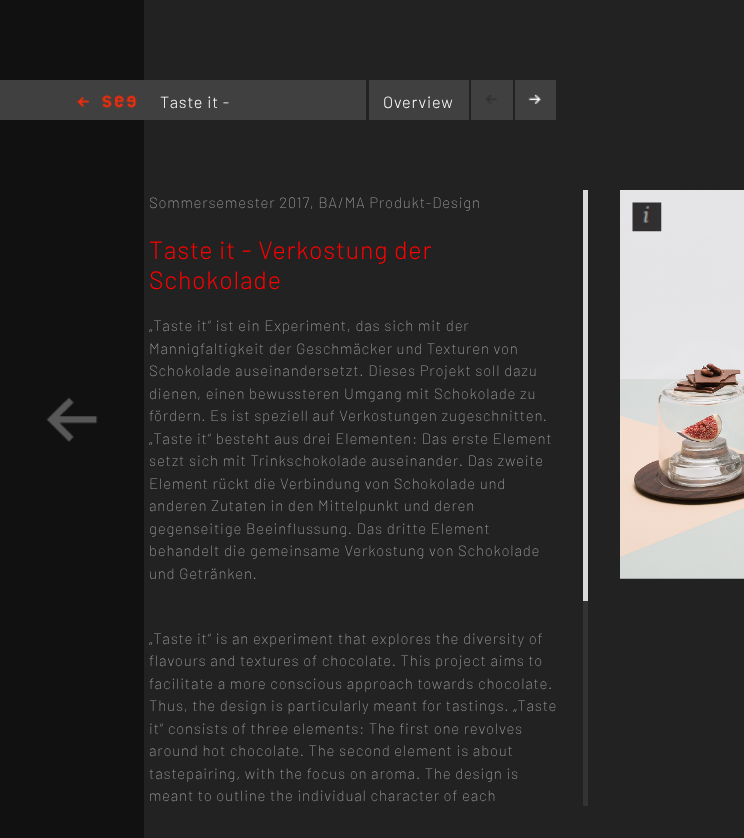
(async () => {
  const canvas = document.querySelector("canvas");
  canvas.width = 744;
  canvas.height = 838;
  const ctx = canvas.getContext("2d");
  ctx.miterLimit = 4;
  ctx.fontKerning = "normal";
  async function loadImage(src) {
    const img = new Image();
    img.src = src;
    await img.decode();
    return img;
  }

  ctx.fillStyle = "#222222";
  ctx.fillRect(0, 0, 744, 838);
  ctx.fillStyle = "#111111";
  ctx.fillRect(0, 0, 144, 838);
  ctx.drawImage(await loadImage("img/1.png"), 46, 397, 52, 45);
  ctx.fillStyle = "#404040";
  ctx.fillRect(0, 80, 366, 40);
  ctx.drawImage(await loadImage("img/2.png"), 77, 95, 60, 13);
  ctx.fillRect(369, 80, 100, 40);
  ctx.fillRect(471, 80, 42, 40);
  ctx.drawImage(await loadImage("img/3.png"), 486, 95, 11, 9);
  ctx.fillRect(515, 80, 41, 40);
  ctx.drawImage(await loadImage("img/4.png"), 528, 94, 14, 10);
  ctx.fillStyle = "#333333";
  ctx.fillRect(583, 601, 5, 205);
  ctx.fillStyle = "#dadada";
  ctx.fillRect(583, 190, 5, 411);
  ctx.drawImage(await loadImage("img/5.png"), 620, 190, 124, 389);
  ctx.drawImage(await loadImage("img/6.png"), 632, 202, 30, 30);
  ctx.letterSpacing = "0.8px";
  ctx.font = "300 16.25px Barlow";
  ctx.fillStyle = "#ffffff";
  ctx.fillText("Taste it -", 160, 108);
  ctx.fillText("Overview", 383, 108);
  ctx.font = "200 15px Barlow";
  ctx.fillStyle = "#999999";
  ctx.fillText("Sommersemester 2017, BA/MA Produkt-Design", 149, 208);
  ctx.font = "300 25px Barlow";
  ctx.fillStyle = "#ff0000";
  ctx.fillText("Taste it - Verkostung der", 149, 259);
  ctx.fillText("Schokolade", 149, 289);
  ctx.font = "200 15px Barlow";
  ctx.fillStyle = "#999999";
  for (const [text, x, y] of [
    ["„Taste it“ ist ein Experiment, das sich mit der", 149, 331],
    ["Mannigfaltigkeit der Geschmäcker und Texturen von", 149, 354],
    ["Schokolade auseinandersetzt. Dieses Projekt soll dazu", 149, 376],
    ["dienen, einen bewussteren Umgang mit Schokolade zu", 149, 399],
    ["fördern. Es ist speziell auf Verkostungen zugeschnitten.", 149, 421],
    ["„Taste it“ besteht aus drei Elementen: Das erste Element", 149, 444],
    ["setzt sich mit Trinkschokolade auseinander. Das zweite", 149, 466],
    ["Element rückt die Verbindung von Schokolade und", 149, 489],
    ["anderen Zutaten in den Mittelpunkt und deren", 149, 511],
    ["gegenseitige Beeinflussung. Das dritte Element", 149, 534],
    ["behandelt die gemeinsame Verkostung von Schokolade", 149, 556],
    ["und Getränken.", 149, 579],
    ["„Taste it“ is an experiment that explores the diversity of", 149, 644],
    ["flavours and textures of chocolate. This project aims to", 149, 666],
    ["facilitate a more conscious approach towards chocolate.", 149, 689],
    ["Thus, the design is particularly meant for tastings. „Taste", 149, 711],
    ["it“ consists of three elements: The first one revolves", 149, 734],
    ["around hot chocolate. The second element is about", 149, 756],
    ["tastepairing, with the focus on aroma. The design is", 149, 779],
    ["meant to outline the individual character of each", 149, 801],
  ]) {
    ctx.fillText(text, x, y);
  }
})();
